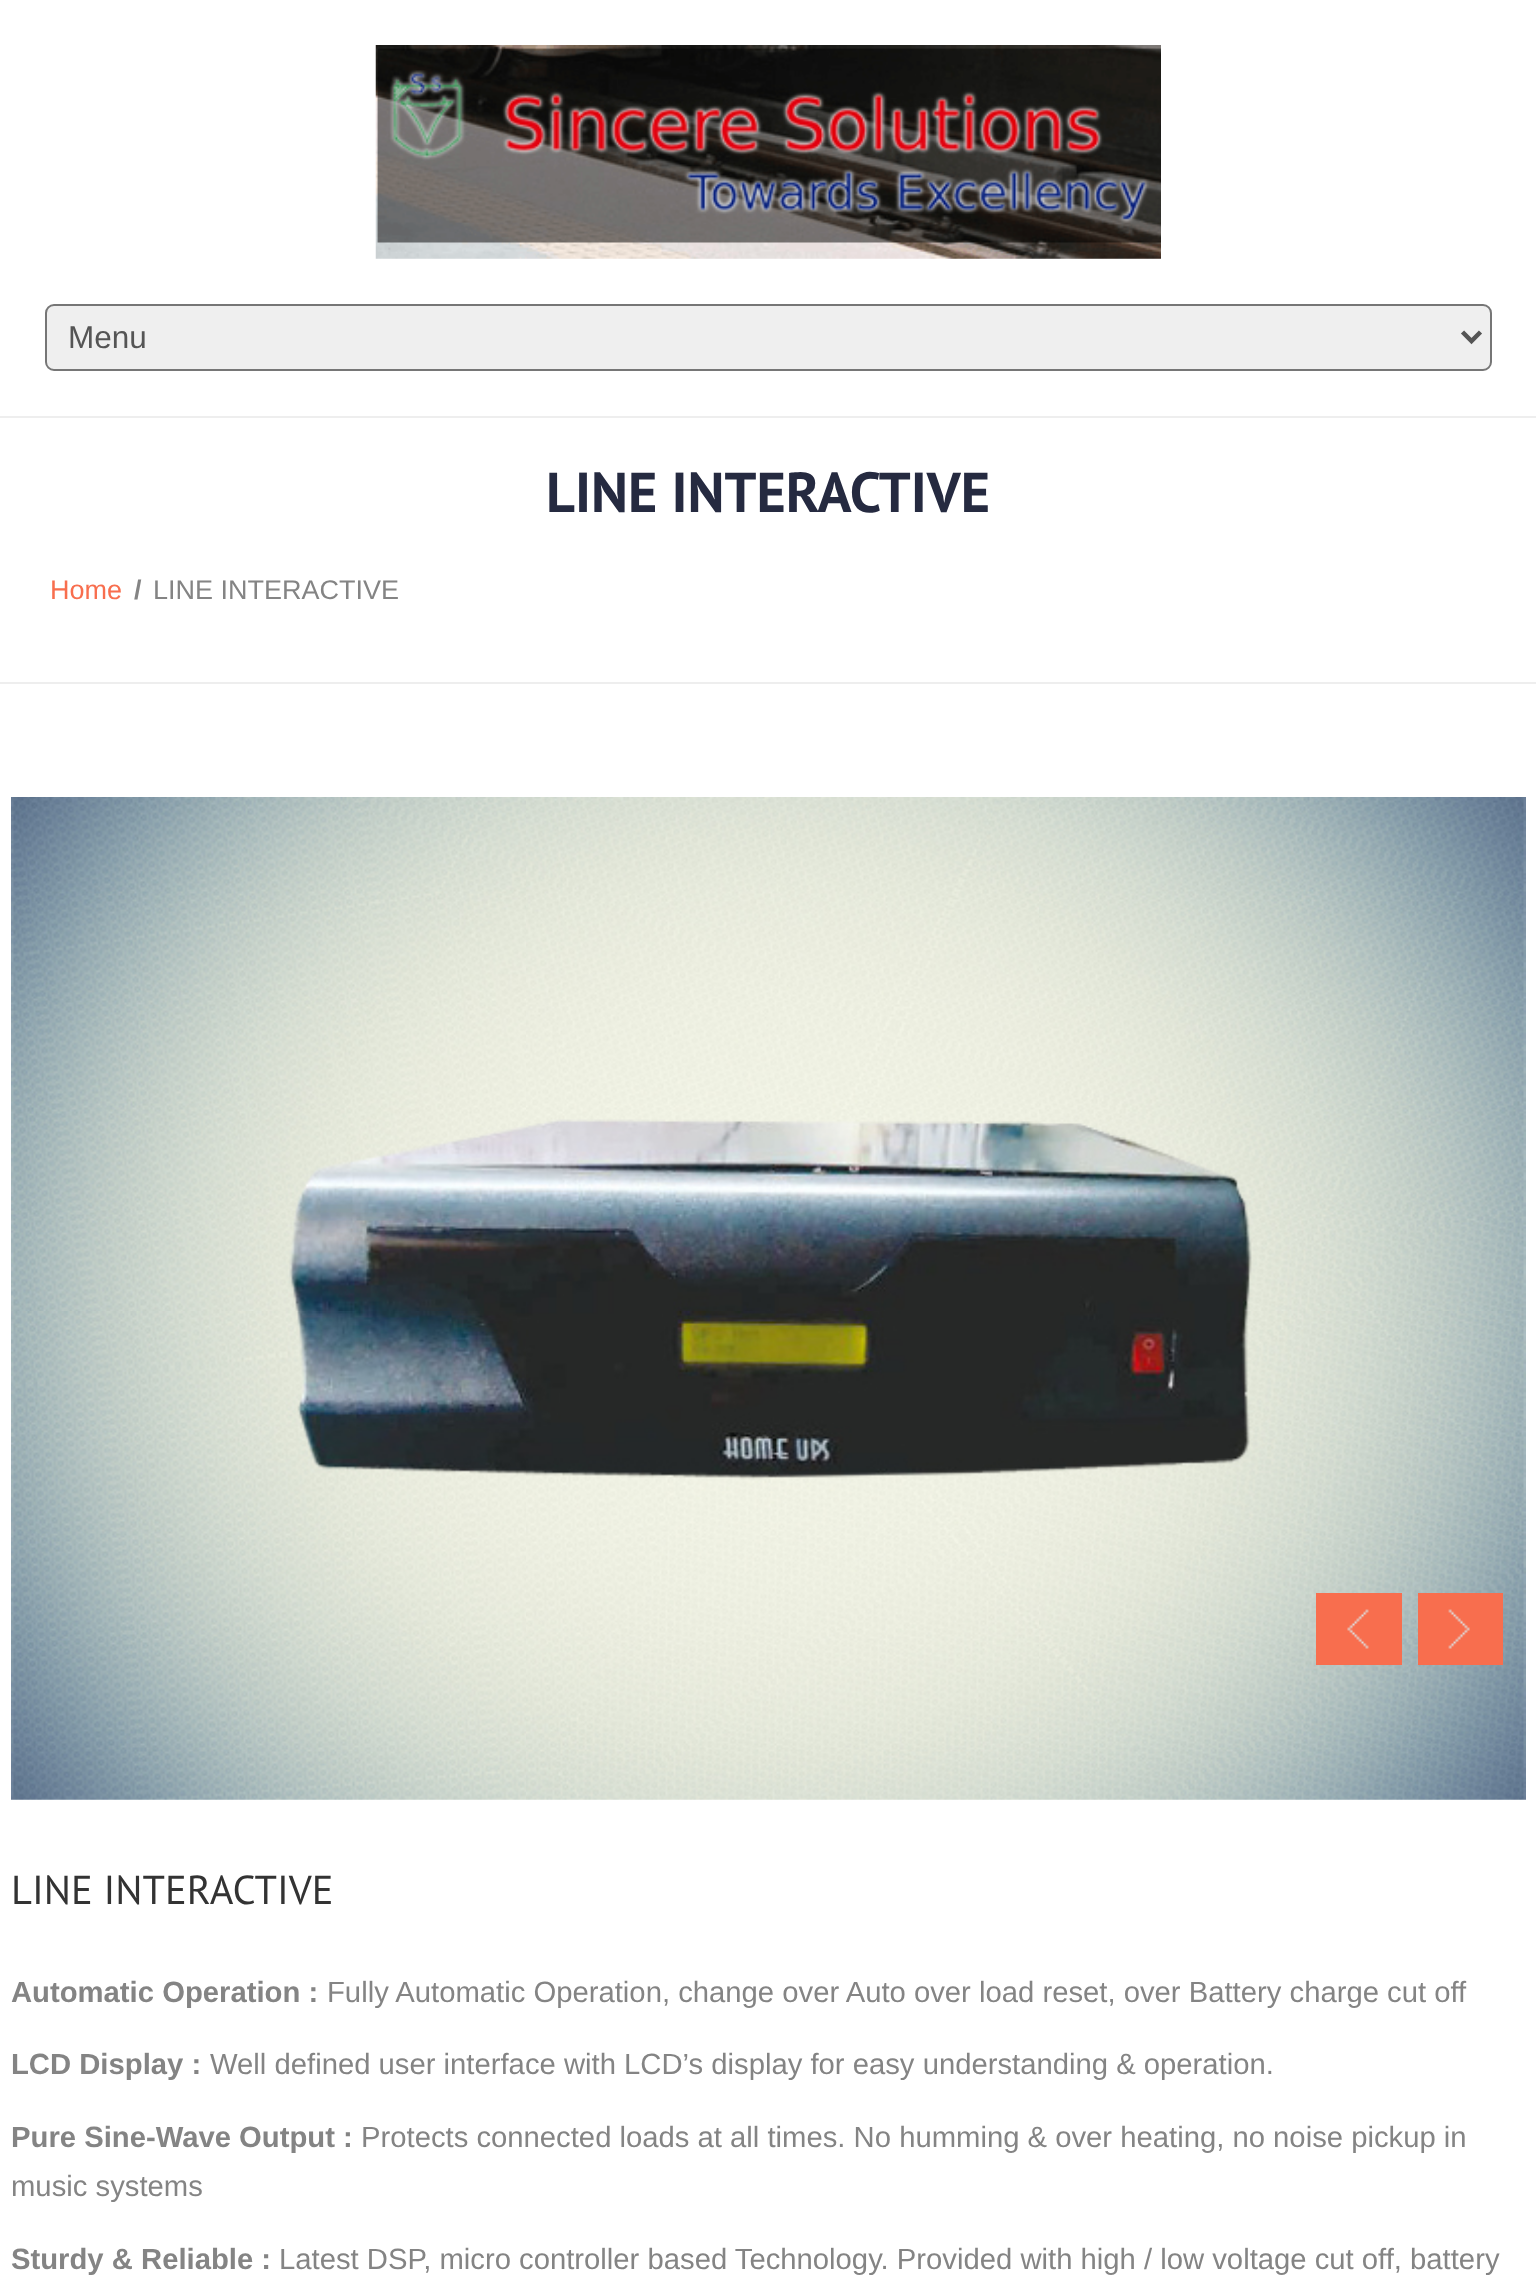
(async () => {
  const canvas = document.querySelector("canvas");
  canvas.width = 1536;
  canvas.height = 2290;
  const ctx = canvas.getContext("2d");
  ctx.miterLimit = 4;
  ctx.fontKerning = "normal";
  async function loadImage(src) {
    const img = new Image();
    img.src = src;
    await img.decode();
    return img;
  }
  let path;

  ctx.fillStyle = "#ffffff";
  ctx.fillRect(0, 0, 1536, 2290);
  ctx.fillStyle = "#eeeeee";
  ctx.fillRect(0, 416, 1536, 2);
  ctx.drawImage(await loadImage("img/1.png"), 375, 45, 786, 214);
  ctx.fillStyle = "#efefef";
  ctx.beginPath();
  ctx.roundRect(46, 305, 1445, 65, 8);
  ctx.fill();
  ctx.strokeStyle = "#767676";
  ctx.lineWidth = 2;
  ctx.stroke();
  path = new Path2D("M1462.5 332L1471.5 341L1480.5 332");
  ctx.strokeStyle = "#555555";
  ctx.lineWidth = 4.5;
  ctx.stroke(path);
  ctx.fillStyle = "#eeeeee";
  ctx.fillRect(0, 682, 1536, 2);
  ctx.drawImage(await loadImage("img/2.png"), 11, 797, 1515, 1003);
  ctx.fillStyle = "#f86e4e";
  ctx.fillRect(1316, 1593, 86, 72);
  ctx.drawImage(await loadImage("img/3.png"), 1347, 1609, 22, 40);
  ctx.fillRect(1418, 1593, 85, 72);
  ctx.drawImage(await loadImage("img/4.png"), 1448, 1609, 22, 40);
  ctx.font = "31.5px Liberation Sans";
  ctx.fillStyle = "#555555";
  ctx.fillText("Menu", 68, 348);
  ctx.font = "bold 56.25px PT Sans";
  ctx.fillStyle = "#252a40";
  ctx.fillText("LINE INTERACTIVE", 546, 512);
  ctx.font = "27px Liberation Sans";
  ctx.fillStyle = "#f86e4e";
  ctx.fillText("Home", 50, 599);
  ctx.font = "bold 27px Liberation Sans";
  ctx.fillStyle = "#848484";
  ctx.fillText("/", 134, 599);
  ctx.font = "27px Liberation Sans";
  ctx.fillText("LINE INTERACTIVE", 153, 599);
  ctx.font = "40.5px PT Sans";
  ctx.fillStyle = "#333333";
  ctx.fillText("LINE INTERACTIVE", 11, 1904);
  ctx.font = "bold 29.25px Liberation Sans";
  ctx.fillStyle = "#848484";
  ctx.fillText("Automatic Operation :", 11, 2002);
  ctx.font = "29.25px Liberation Sans";
  ctx.fillText("Fully Automatic Operation, change over Auto over load reset, over Battery charge cut off", 327, 2002);
  ctx.font = "bold 29.25px Liberation Sans";
  ctx.fillText("LCD Display :", 11, 2074);
  ctx.font = "29.25px Liberation Sans";
  ctx.fillText("Well defined user interface with LCD’s display for easy understanding & operation.", 210, 2074);
  ctx.font = "bold 29.25px Liberation Sans";
  ctx.fillText("Pure Sine-Wave Output :", 11, 2147);
  ctx.font = "29.25px Liberation Sans";
  ctx.fillText("Protects connected loads at all times. No humming & over heating, no noise pickup in", 361, 2147);
  ctx.fillText("music systems", 11, 2196);
  ctx.font = "bold 29.25px Liberation Sans";
  ctx.fillText("Sturdy & Reliable :", 11, 2269);
  ctx.font = "29.25px Liberation Sans";
  ctx.fillText("Latest DSP, micro controller based Technology. Provided with high / low voltage cut off, battery", 279, 2269);
})();
